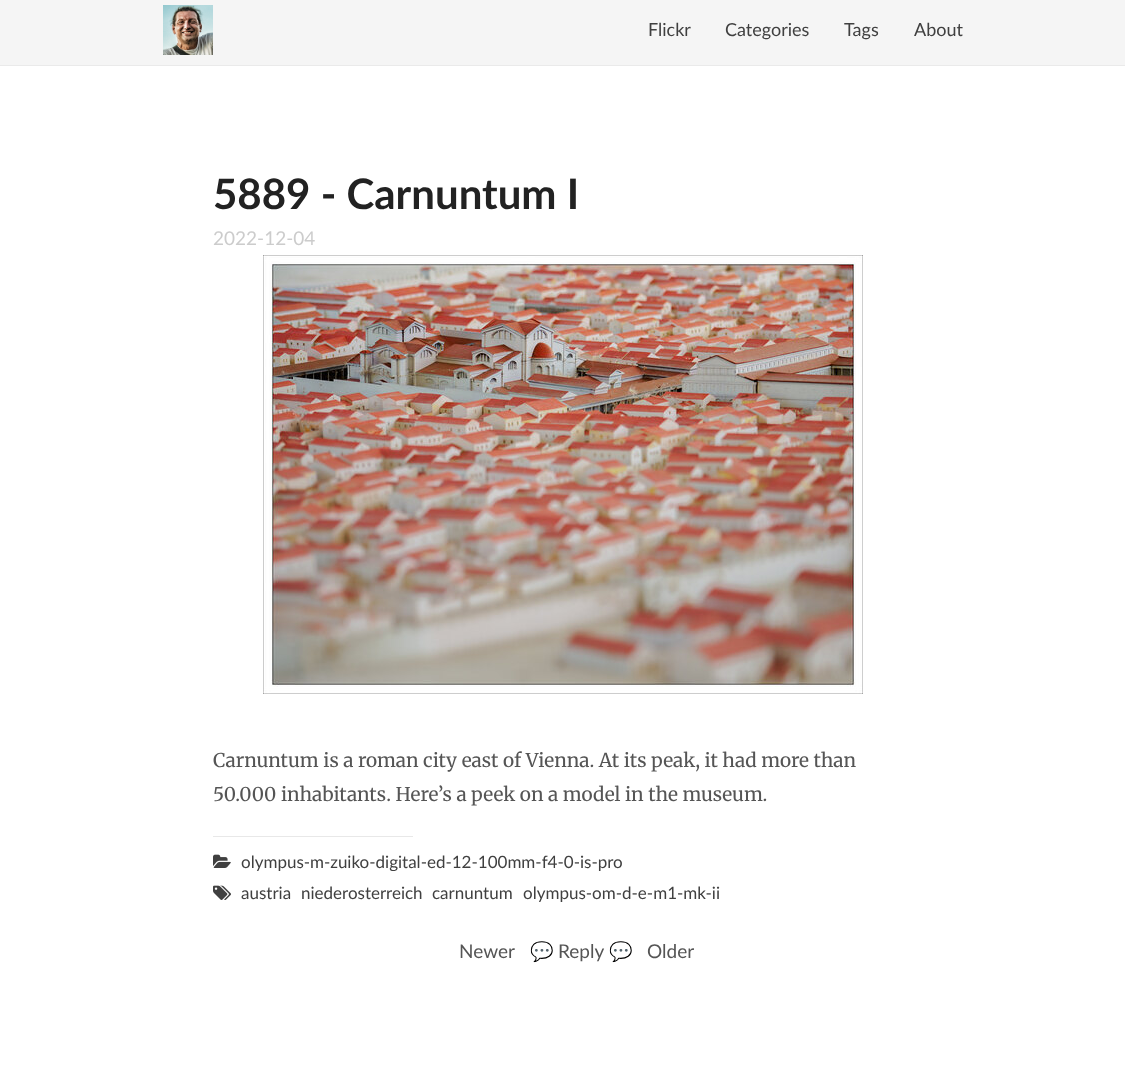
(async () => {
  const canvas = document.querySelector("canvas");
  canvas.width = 1125;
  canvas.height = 1080;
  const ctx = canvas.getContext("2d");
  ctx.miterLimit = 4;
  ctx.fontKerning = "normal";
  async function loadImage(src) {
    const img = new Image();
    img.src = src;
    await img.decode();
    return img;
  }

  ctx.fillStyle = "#ffffff";
  ctx.fillRect(0, 0, 1125, 1080);
  ctx.fillStyle = "#f5f5f5";
  ctx.fillRect(0, 0, 1125, 65);
  ctx.fillStyle = "#eaeaea";
  ctx.fillRect(0, 65, 1125, 1);
  ctx.drawImage(await loadImage("img/1.png"), 163, 5, 50, 50);
  ctx.drawImage(await loadImage("img/2.png"), 263, 255, 600, 439);
  ctx.fillStyle = "#e8e8e8";
  ctx.fillRect(213, 836, 200, 1);
  ctx.drawImage(await loadImage("img/3.png"), 213, 854, 18, 14);
  ctx.drawImage(await loadImage("img/4.png"), 213, 885, 18, 15);
  ctx.font = "18px Lato";
  ctx.fillStyle = "#404040";
  for (const [text, x, y] of [
    ["Flickr", 648, 36],
    ["Categories", 725, 36],
    ["Tags", 844, 36],
    ["About", 914, 36],
  ]) {
    ctx.fillText(text, x, y);
  }
  ctx.font = "bold 42px Lato";
  ctx.fillStyle = "#222222";
  ctx.fillText("5889 - Carnuntum I", 213, 209);
  ctx.font = "19px Lato";
  ctx.fillStyle = "#cccccc";
  ctx.fillText("2022-12-04", 213, 245);
  ctx.font = "19px Merriweather";
  ctx.fillStyle = "#555555";
  ctx.fillText("Carnuntum is a roman city east of Vienna. At its peak, it had more than", 213, 767);
  ctx.fillText("50.000 inhabitants. Here’s a peek on a model in the museum.", 213, 801);
  ctx.font = "17px Lato";
  ctx.fillStyle = "#404040";
  for (const [text, x, y] of [
    ["olympus-m-zuiko-digital-ed-12-100mm-f4-0-is-pro", 241, 868],
    ["austria", 241, 899],
    ["niederosterreich", 301, 899],
    ["carnuntum", 432, 899],
    ["olympus-om-d-e-m1-mk-ii", 523, 899],
  ]) {
    ctx.fillText(text, x, y);
  }
  ctx.font = "19px Lato";
  ctx.fillStyle = "#555555";
  ctx.fillText("Newer", 459, 958);
  ctx.font = "19px Noto Color Emoji";
  ctx.fillText("💬", 530, 958);
  ctx.font = "19px Lato";
  ctx.fillText("Reply", 558, 958);
  ctx.font = "19px Noto Color Emoji";
  ctx.fillText("💬", 609, 958);
  ctx.font = "19px Lato";
  ctx.fillText("Older", 647, 958);
})();
